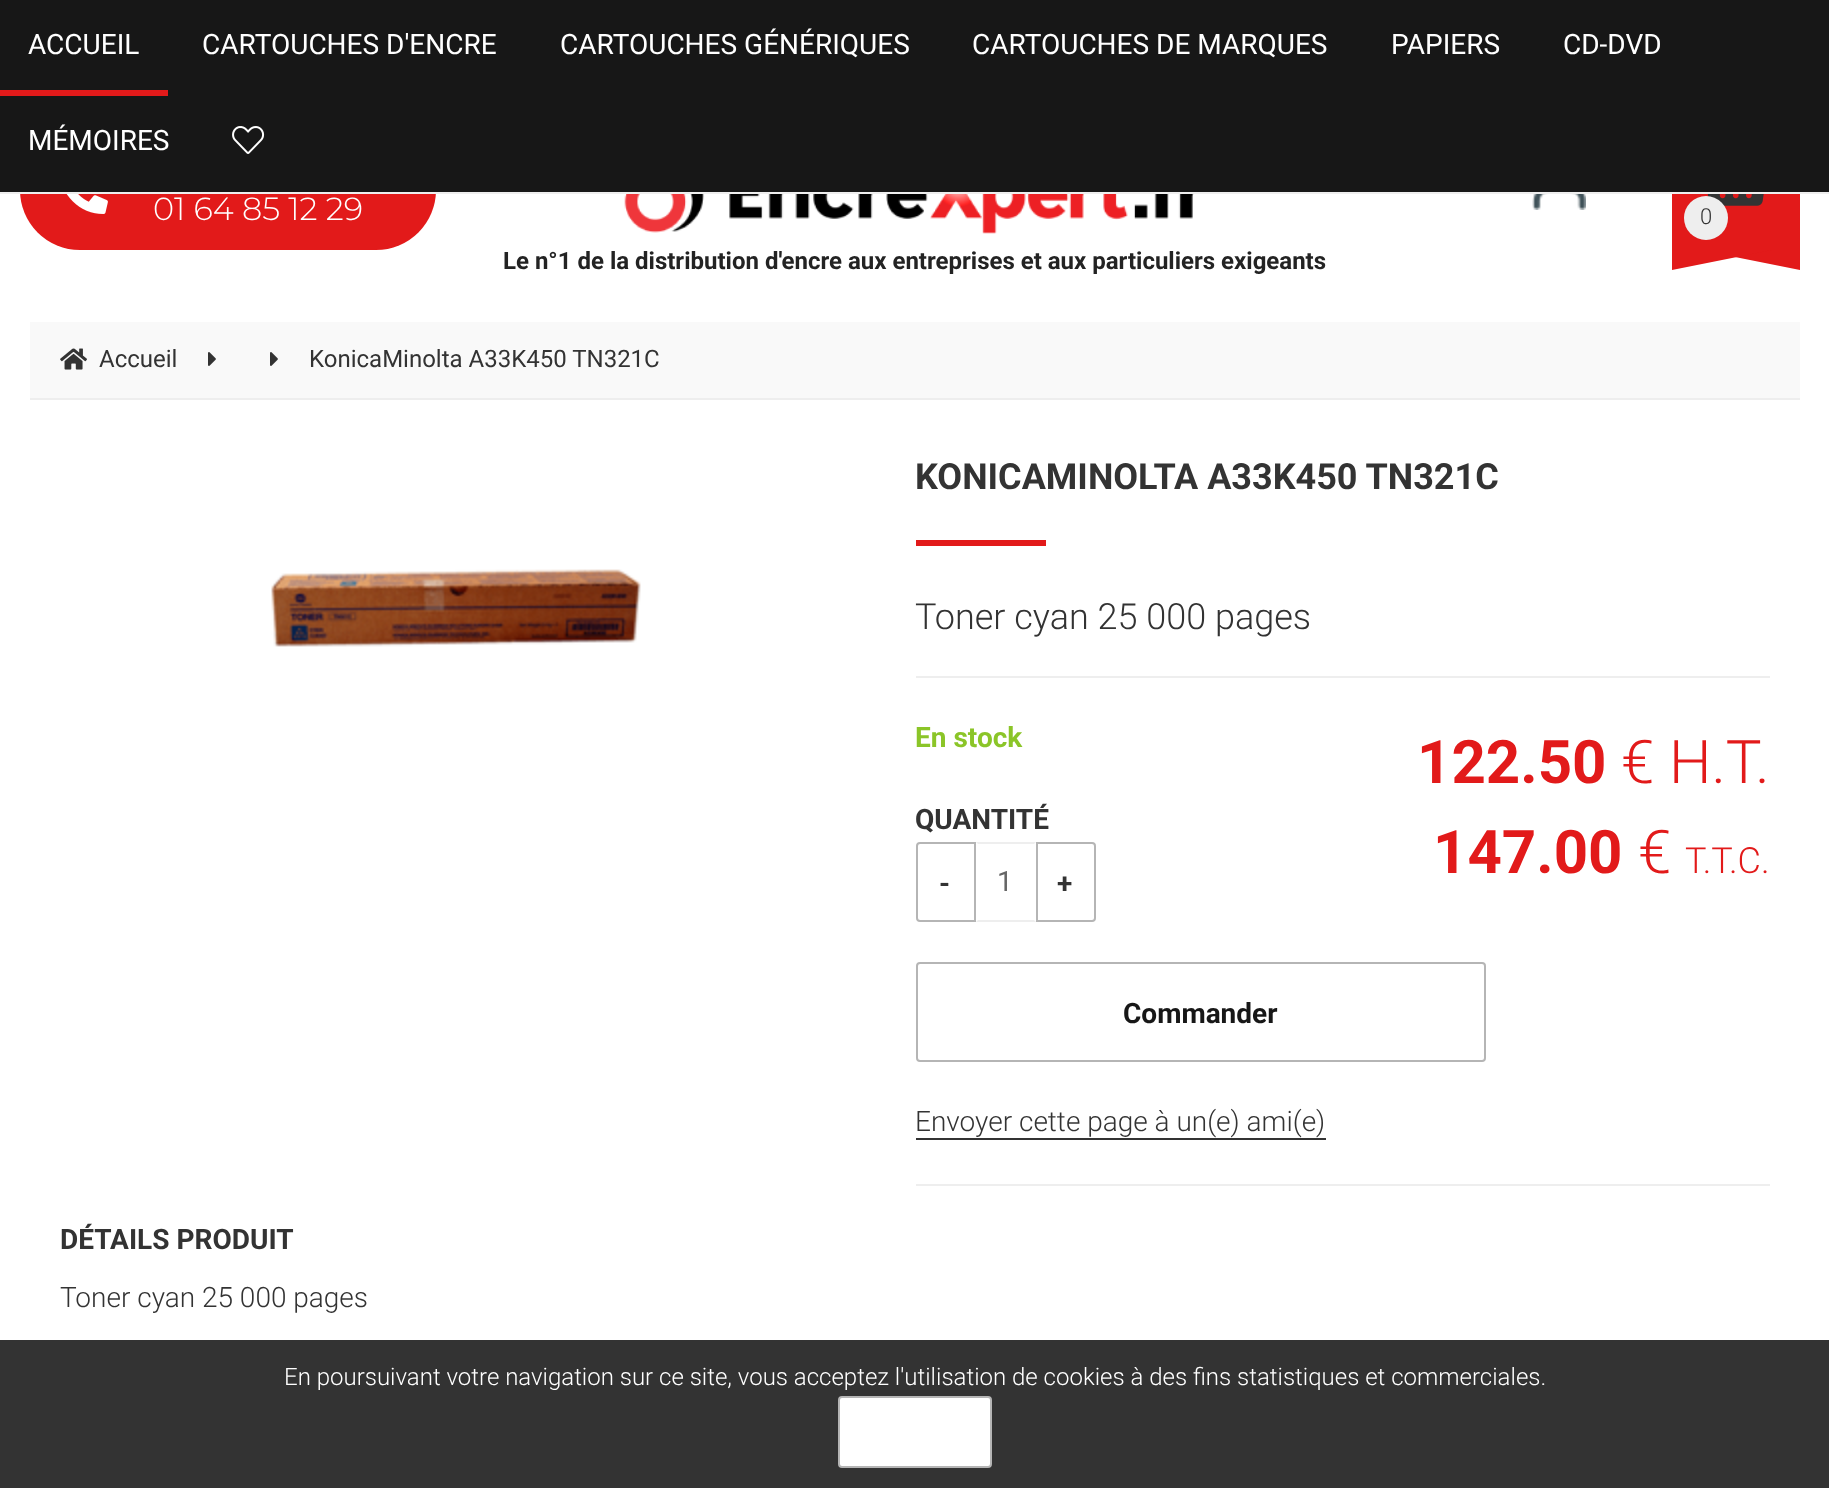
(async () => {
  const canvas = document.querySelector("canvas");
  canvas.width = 1829;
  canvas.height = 1488;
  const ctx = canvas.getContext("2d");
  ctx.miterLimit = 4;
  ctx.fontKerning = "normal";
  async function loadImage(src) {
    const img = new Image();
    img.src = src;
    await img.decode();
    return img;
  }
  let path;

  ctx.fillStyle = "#ffffff";
  ctx.fillRect(0, 0, 1829, 1488);
  ctx.fillStyle = "#e21a1a";
  ctx.beginPath();
  ctx.roundRect(20, 130, 416, 120, 60);
  ctx.fill();
  for (const [x, y, w, h, color] of [
    [0, 0, 1829, 192, "#171717"],
    [0, 192, 1829, 2, "#eeeeee"],
    [0, 90, 168, 6, "#e21a1a"],
  ]) {
    ctx.fillStyle = color;
    ctx.fillRect(x, y, w, h);
  }
  ctx.drawImage(await loadImage("img/1.png"), 232, 126, 33, 28);
  ctx.drawImage(await loadImage("img/2.png"), 66, 194, 42, 20);
  ctx.drawImage(await loadImage("img/3.png"), 1532, 194, 54, 16);
  ctx.fillRect(1672, 194, 128, 56);
  ctx.drawImage(await loadImage("img/4.png"), 1707, 194, 57, 12);
  ctx.fillStyle = "#eeeeee";
  ctx.beginPath();
  ctx.arc(1706, 218, 22, 0, Math.PI * 2);
  ctx.fill();
  ctx.fillStyle = "#e21a1a";
  path = new Path2D("M1700 250H1800V270Z");
  ctx.fill(path);
  path = new Path2D("M1672 250H1772L1672 270Z");
  ctx.fill(path);
  ctx.drawImage(await loadImage("img/5.png"), 624, 194, 570, 40);
  ctx.fillStyle = "#f9f9f9";
  ctx.fillRect(30, 322, 1770, 76);
  ctx.fillStyle = "#eeeeee";
  ctx.fillRect(30, 398, 1770, 2);
  ctx.drawImage(await loadImage("img/6.png"), 60, 348, 27, 22);
  ctx.drawImage(await loadImage("img/7.png"), 208, 352, 8, 14);
  ctx.drawImage(await loadImage("img/7.png"), 270, 352, 8, 14);
  ctx.fillStyle = "#e21a1a";
  ctx.fillRect(916, 540, 130, 6);
  ctx.drawImage(await loadImage("img/8.png"), 271, 550, 370, 97);
  ctx.fillStyle = "#eeeeee";
  ctx.fillRect(916, 676, 854, 2);
  ctx.fillRect(916, 1184, 854, 2);
  ctx.beginPath();
  ctx.roundRect(917, 843, 58, 78, [3, 0, 0, 3]);
  ctx.strokeStyle = "#b5b5b5";
  ctx.lineWidth = 2;
  ctx.stroke();
  path = new Path2D("M976 842H1036L1034 844H978Z");
  ctx.fill(path);
  path = new Path2D("M1036 922H976L978 920H1034Z");
  ctx.fill(path);
  ctx.beginPath();
  ctx.roundRect(1037, 843, 58, 78, [0, 3, 3, 0]);
  ctx.stroke();
  ctx.beginPath();
  ctx.roundRect(917, 963, 568, 98, 3);
  ctx.stroke();
  ctx.fillStyle = "#333333";
  ctx.fillRect(916, 1138, 410, 2);
  ctx.fillRect(0, 1340, 1829, 148);
  ctx.fillStyle = "#ffffff";
  ctx.beginPath();
  ctx.roundRect(839, 1397, 152, 70, 3);
  ctx.fill();
  ctx.stroke();
  ctx.font = "28px Roboto";
  for (const [text, x, y] of [
    ["ACCUEIL", 28, 54],
    ["CARTOUCHES D'ENCRE", 202, 54],
    ["CARTOUCHES GÉNÉRIQUES", 560, 54],
    ["CARTOUCHES DE MARQUES", 972, 54],
    ["PAPIERS", 1391, 54],
    ["CD-DVD", 1563, 54],
    ["MÉMOIRES", 28, 150],
  ]) {
    ctx.fillText(text, x, y);
  }
  ctx.font = "300 32px Montserrat";
  ctx.fillText("01 64 85 12 29", 153, 220);
  ctx.font = "300 22px Roboto";
  ctx.fillStyle = "#333333";
  ctx.fillText("0", 1700, 224);
  ctx.font = "bold 24px Roboto";
  ctx.fillStyle = "#232323";
  ctx.fillText("Le n°1 de la distribution d'encre aux entreprises et aux particuliers exigeants", 503, 269);
  ctx.font = "24px Roboto";
  ctx.fillStyle = "#333333";
  ctx.fillText("Accueil", 99, 367);
  ctx.fillText("KonicaMinolta A33K450 TN321C", 309, 367);
  ctx.font = "bold 36px Roboto";
  ctx.fillText("KONICAMINOLTA A33K450 TN321C", 915, 489);
  ctx.font = "300 36px Roboto";
  ctx.fillText("Toner cyan 25 000 pages", 915, 629);
  ctx.font = "bold 28px Roboto";
  ctx.fillStyle = "#8bc528";
  ctx.fillText("En stock", 915, 747);
  ctx.font = "bold 60px Roboto";
  ctx.fillStyle = "#e21a1a";
  ctx.fillText("122.50", 1417, 783);
  ctx.font = "300 60px Roboto";
  ctx.fillText("€ H.T.", 1621, 783);
  ctx.font = "bold 60px Roboto";
  ctx.fillText("147.00", 1433, 873);
  ctx.font = "300 60px Roboto";
  ctx.fillText("€", 1638, 873);
  ctx.font = "300 36px Roboto";
  ctx.fillText("T.T.C.", 1685, 873);
  ctx.font = "bold 28px Roboto";
  ctx.fillStyle = "#333333";
  ctx.fillText("QUANTITÉ", 915, 829);
  ctx.fillText("-", 939, 893);
  ctx.font = "28px Roboto";
  ctx.fillStyle = "#666666";
  ctx.fillText("1", 997, 891);
  ctx.font = "bold 28px Roboto";
  ctx.fillStyle = "#333333";
  ctx.fillText("+", 1057, 893);
  ctx.fillStyle = "#171717";
  ctx.fillText("Commander", 1123, 1023);
  ctx.font = "300 28px Roboto";
  ctx.fillStyle = "#333333";
  ctx.fillText("Envoyer cette page à un(e) ami(e)", 915, 1131);
  ctx.font = "bold 28px Roboto";
  ctx.fillText("DÉTAILS PRODUIT", 60, 1249);
  ctx.font = "300 28px Roboto";
  ctx.fillText("Toner cyan 25 000 pages", 60, 1307);
  ctx.font = "300 24px Roboto";
  ctx.fillStyle = "#ffffff";
  ctx.fillText("En poursuivant votre navigation sur ce site, vous acceptez l'utilisation de cookies à des fins statistiques et commerciales.", 284, 1385);
})();
